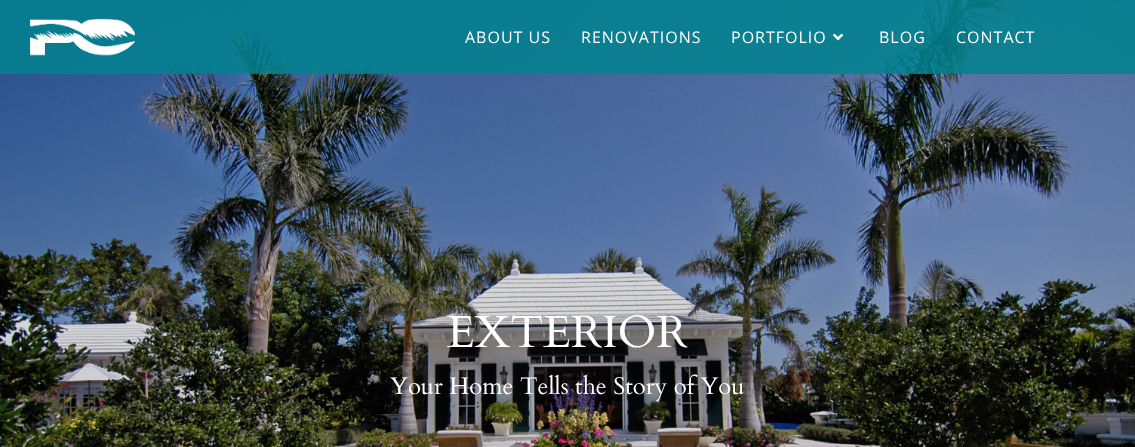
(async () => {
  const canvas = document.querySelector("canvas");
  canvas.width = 1135;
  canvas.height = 447;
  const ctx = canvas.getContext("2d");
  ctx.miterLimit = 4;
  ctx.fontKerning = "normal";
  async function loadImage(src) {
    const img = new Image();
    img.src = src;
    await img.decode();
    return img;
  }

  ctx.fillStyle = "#ffffff";
  ctx.fillRect(0, 0, 1135, 447);
  ctx.drawImage(await loadImage("img/3.png"), 0, 0, 1135, 447);
  ctx.fillStyle = "rgba(1, 130, 143, 0.85)";
  ctx.fillRect(0, 0, 1135, 74);
  ctx.drawImage(await loadImage("img/1.png"), 30, 18, 105, 38);
  ctx.drawImage(await loadImage("img/2.png"), 833, 33, 10, 8);
  ctx.letterSpacing = "1px";
  ctx.font = "16px Open Sans";
  ctx.fillStyle = "#ffffff";
  for (const [text, x, y] of [
    ["ABOUT US", 465, 43],
    ["RENOVATIONS", 581, 43],
    ["PORTFOLIO", 731, 43],
    ["BLOG", 879, 43],
    ["CONTACT", 956, 43],
  ]) {
    ctx.fillText(text, x, y);
  }
  ctx.letterSpacing = "0px";
  ctx.font = "45px Cardo";
  ctx.fillText("EXTERIOR", 447, 347);
  ctx.font = "24px Cardo";
  ctx.fillText("Your Home Tells the Story of You", 390, 394);
})();
